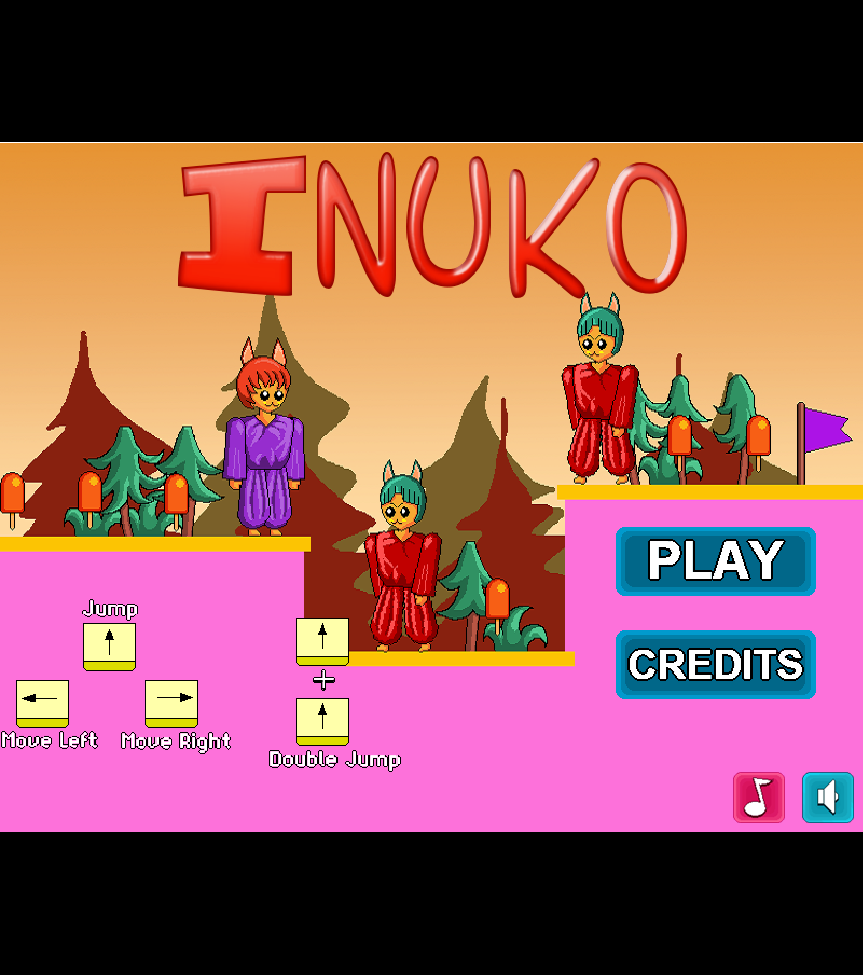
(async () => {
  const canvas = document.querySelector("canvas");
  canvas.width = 863;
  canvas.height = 975;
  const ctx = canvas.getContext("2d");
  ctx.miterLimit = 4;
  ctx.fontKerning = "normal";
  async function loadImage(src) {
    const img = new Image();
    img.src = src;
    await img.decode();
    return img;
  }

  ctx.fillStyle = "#000000";
  ctx.fillRect(0, 0, 863, 975);
  ctx.drawImage(await loadImage("img/1.png"), 0, 142, 863, 690);
})();
